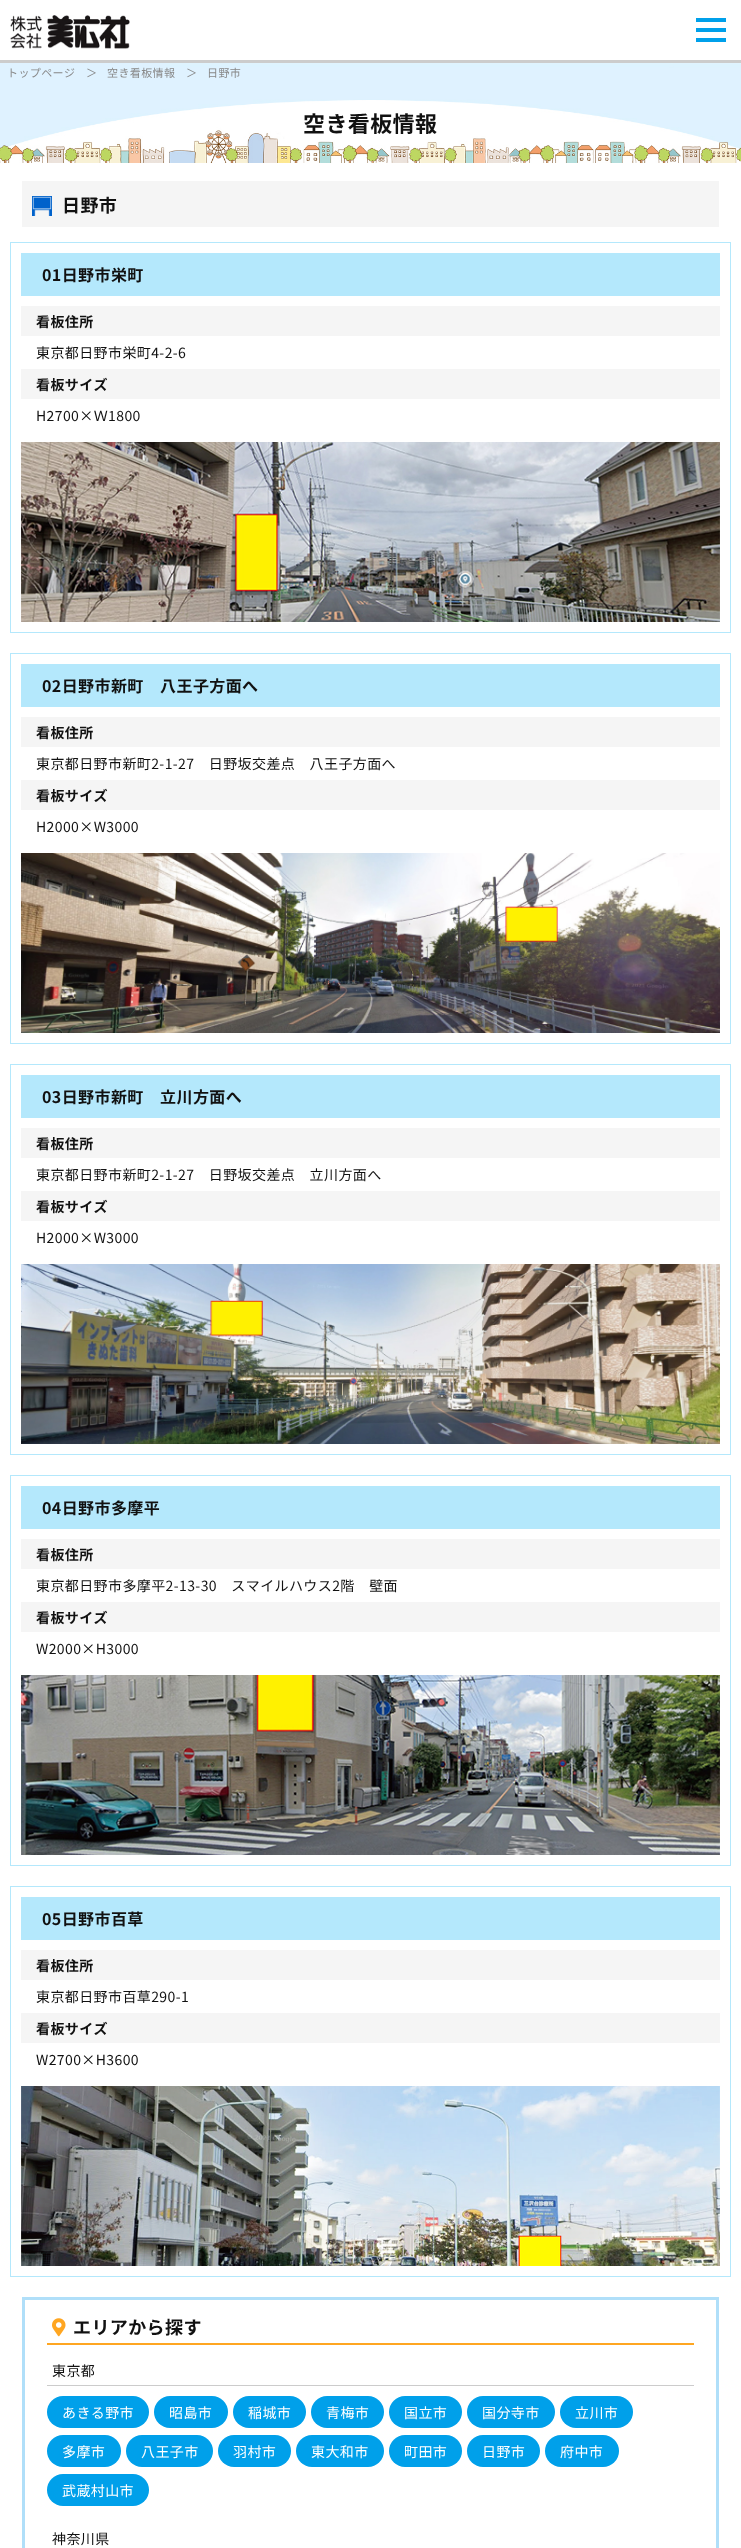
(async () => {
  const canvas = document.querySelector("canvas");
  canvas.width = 741;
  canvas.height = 2548;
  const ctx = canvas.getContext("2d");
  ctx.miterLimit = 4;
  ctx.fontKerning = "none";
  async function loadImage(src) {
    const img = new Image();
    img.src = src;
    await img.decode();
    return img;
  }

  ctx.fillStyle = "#ffffff";
  ctx.fillRect(0, 0, 741, 2548);
  ctx.fillStyle = "#cccccc";
  ctx.fillRect(0, 60, 741, 3);
  ctx.drawImage(await loadImage("img/1.png"), 10, 15, 120, 34);
  for (const [x, y, w, h, color] of [
    [696, 28, 30, 4, "#00a0ea"],
    [696, 18, 30, 4, "#00a0ea"],
    [696, 38, 30, 4, "#00a0ea"],
  ]) {
    ctx.fillStyle = color;
    ctx.fillRect(x, y, w, h);
  }
  ctx.drawImage(await loadImage("img/2.png"), 0, 63, 741, 100);
  ctx.fillStyle = "#f5f5f5";
  ctx.fillRect(22, 181, 697, 46);
  ctx.drawImage(await loadImage("img/3.png"), 32, 196, 20, 20);
  ctx.strokeStyle = "#b4e8fc";
  ctx.strokeRect(10.5, 242.5, 720, 390);
  for (const [x, y, w, h, color] of [
    [21, 253, 699, 43, "#b4e8fc"],
    [21, 306, 699, 30, "#f5f5f5"],
    [21, 369, 699, 30, "#f5f5f5"],
  ]) {
    ctx.fillStyle = color;
    ctx.fillRect(x, y, w, h);
  }
  ctx.drawImage(await loadImage("img/4.png"), 21, 442, 699, 180);
  ctx.strokeRect(10.5, 653.5, 720, 390);
  for (const [x, y, w, h, color] of [
    [21, 664, 699, 43, "#b4e8fc"],
    [21, 717, 699, 30, "#f5f5f5"],
    [21, 780, 699, 30, "#f5f5f5"],
  ]) {
    ctx.fillStyle = color;
    ctx.fillRect(x, y, w, h);
  }
  ctx.drawImage(await loadImage("img/5.png"), 21, 853, 699, 180);
  ctx.strokeRect(10.5, 1064.5, 720, 390);
  for (const [x, y, w, h, color] of [
    [21, 1075, 699, 43, "#b4e8fc"],
    [21, 1128, 699, 30, "#f5f5f5"],
    [21, 1191, 699, 30, "#f5f5f5"],
  ]) {
    ctx.fillStyle = color;
    ctx.fillRect(x, y, w, h);
  }
  ctx.drawImage(await loadImage("img/6.png"), 21, 1264, 699, 180);
  ctx.strokeRect(10.5, 1475.5, 720, 390);
  for (const [x, y, w, h, color] of [
    [21, 1486, 699, 43, "#b4e8fc"],
    [21, 1539, 699, 30, "#f5f5f5"],
    [21, 1602, 699, 30, "#f5f5f5"],
  ]) {
    ctx.fillStyle = color;
    ctx.fillRect(x, y, w, h);
  }
  ctx.drawImage(await loadImage("img/7.png"), 21, 1675, 699, 180);
  ctx.strokeRect(10.5, 1886.5, 720, 390);
  for (const [x, y, w, h, color] of [
    [21, 1897, 699, 43, "#b4e8fc"],
    [21, 1950, 699, 30, "#f5f5f5"],
    [21, 2013, 699, 30, "#f5f5f5"],
  ]) {
    ctx.fillStyle = color;
    ctx.fillRect(x, y, w, h);
  }
  ctx.drawImage(await loadImage("img/8.png"), 21, 2086, 699, 180);
  ctx.strokeStyle = "#b0dff9";
  ctx.lineWidth = 3;
  ctx.strokeRect(23.5, 2298.5, 694, 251);
  ctx.fillStyle = "#ffa621";
  ctx.fillRect(47, 2343, 647, 2);
  ctx.drawImage(await loadImage("img/9.png"), 52, 2318, 14, 19);
  ctx.fillStyle = "#cccccc";
  ctx.fillRect(47, 2385, 647, 1);
  ctx.fillStyle = "#00a0ea";
  ctx.beginPath();
  ctx.roundRect(47, 2396, 102, 32, 16);
  ctx.fill();
  ctx.beginPath();
  ctx.roundRect(154, 2396, 74, 32, 16);
  ctx.fill();
  ctx.beginPath();
  ctx.roundRect(233, 2396, 73, 32, 16);
  ctx.fill();
  ctx.beginPath();
  ctx.roundRect(311, 2396, 73, 32, 16);
  ctx.fill();
  ctx.beginPath();
  ctx.roundRect(389, 2396, 73, 32, 16);
  ctx.fill();
  ctx.beginPath();
  ctx.roundRect(467, 2396, 88, 32, 16);
  ctx.fill();
  ctx.beginPath();
  ctx.roundRect(560, 2396, 73, 32, 16);
  ctx.fill();
  ctx.beginPath();
  ctx.roundRect(47, 2435, 74, 32, 16);
  ctx.fill();
  ctx.beginPath();
  ctx.roundRect(126, 2435, 87, 32, 16);
  ctx.fill();
  ctx.beginPath();
  ctx.roundRect(218, 2435, 73, 32, 16);
  ctx.fill();
  ctx.beginPath();
  ctx.roundRect(296, 2435, 88, 32, 16);
  ctx.fill();
  ctx.beginPath();
  ctx.roundRect(389, 2435, 73, 32, 16);
  ctx.fill();
  ctx.beginPath();
  ctx.roundRect(467, 2435, 73, 32, 16);
  ctx.fill();
  ctx.beginPath();
  ctx.roundRect(545, 2435, 74, 32, 16);
  ctx.fill();
  ctx.beginPath();
  ctx.roundRect(47, 2474, 102, 32, 16);
  ctx.fill();
  ctx.letterSpacing = "0.4px";
  ctx.font = "11px Noto Sans JP";
  ctx.fillStyle = "#888888";
  for (const [text, x, y] of [
    ["トップページ", 7, 77],
    ["＞", 86, 77],
    ["空き看板情報", 107, 77],
    ["＞", 186, 77],
    ["日野市", 207, 77],
  ]) {
    ctx.fillText(text, x, y);
  }
  ctx.font = "bold 22px Noto Sans JP";
  ctx.fillStyle = "#111111";
  ctx.fillText("空き看板情報", 303, 132);
  ctx.font = "bold 18px Noto Sans JP";
  ctx.fillText("日野市", 62, 212);
  ctx.font = "bold 16px Noto Sans JP";
  ctx.fillText("01日野市栄町", 42, 281);
  ctx.font = "bold 14px Noto Sans JP";
  ctx.fillText("看板住所", 36, 327);
  ctx.font = "14px Noto Sans JP";
  ctx.fillText("東京都日野市栄町4-2-6", 36, 358);
  ctx.font = "bold 14px Noto Sans JP";
  ctx.fillText("看板サイズ", 36, 390);
  ctx.font = "14px Noto Sans JP";
  ctx.fillText("H2700×Ｗ1800", 36, 421);
  ctx.font = "bold 16px Noto Sans JP";
  ctx.fillText("02日野市新町　八王子方面へ", 42, 692);
  ctx.font = "bold 14px Noto Sans JP";
  ctx.fillText("看板住所", 36, 738);
  ctx.font = "14px Noto Sans JP";
  ctx.fillText("東京都日野市新町2-1-27　日野坂交差点　八王子方面へ", 36, 769);
  ctx.font = "bold 14px Noto Sans JP";
  ctx.fillText("看板サイズ", 36, 801);
  ctx.font = "14px Noto Sans JP";
  ctx.fillText("H2000×W3000", 36, 832);
  ctx.font = "bold 16px Noto Sans JP";
  ctx.fillText("03日野市新町　立川方面へ", 42, 1103);
  ctx.font = "bold 14px Noto Sans JP";
  ctx.fillText("看板住所", 36, 1149);
  ctx.font = "14px Noto Sans JP";
  ctx.fillText("東京都日野市新町2-1-27　日野坂交差点　立川方面へ", 36, 1180);
  ctx.font = "bold 14px Noto Sans JP";
  ctx.fillText("看板サイズ", 36, 1212);
  ctx.font = "14px Noto Sans JP";
  ctx.fillText("H2000×W3000", 36, 1243);
  ctx.font = "bold 16px Noto Sans JP";
  ctx.fillText("04日野市多摩平", 42, 1514);
  ctx.font = "bold 14px Noto Sans JP";
  ctx.fillText("看板住所", 36, 1560);
  ctx.font = "14px Noto Sans JP";
  ctx.fillText("東京都日野市多摩平2-13-30　スマイルハウス2階　壁面", 36, 1591);
  ctx.font = "bold 14px Noto Sans JP";
  ctx.fillText("看板サイズ", 36, 1623);
  ctx.font = "14px Noto Sans JP";
  ctx.fillText("W2000×H3000", 36, 1654);
  ctx.font = "bold 16px Noto Sans JP";
  ctx.fillText("05日野市百草", 42, 1925);
  ctx.font = "bold 14px Noto Sans JP";
  ctx.fillText("看板住所", 36, 1971);
  ctx.font = "14px Noto Sans JP";
  ctx.fillText("東京都日野市百草290-1", 36, 2002);
  ctx.font = "bold 14px Noto Sans JP";
  ctx.fillText("看板サイズ", 36, 2034);
  ctx.font = "14px Noto Sans JP";
  ctx.fillText("W2700×H3600", 36, 2065);
  ctx.font = "bold 18px Noto Sans JP";
  ctx.fillText("エリアから探す", 73, 2334);
  ctx.font = "14px Noto Sans JP";
  ctx.fillText("東京都", 52, 2376);
  ctx.fillStyle = "#ffffff";
  for (const [text, x, y] of [
    ["あきる野市", 62, 2418],
    ["昭島市", 169, 2418],
    ["稲城市", 248, 2418],
    ["青梅市", 326, 2418],
    ["国立市", 404, 2418],
    ["国分寺市", 482, 2418],
    ["立川市", 575, 2418],
    ["多摩市", 62, 2457],
    ["八王子市", 141, 2457],
    ["羽村市", 233, 2457],
    ["東大和市", 311, 2457],
    ["町田市", 404, 2457],
    ["日野市", 482, 2457],
    ["府中市", 560, 2457],
    ["武蔵村山市", 62, 2496],
  ]) {
    ctx.fillText(text, x, y);
  }
  ctx.fillStyle = "#111111";
  ctx.fillText("神奈川県", 52, 2544);
})();
